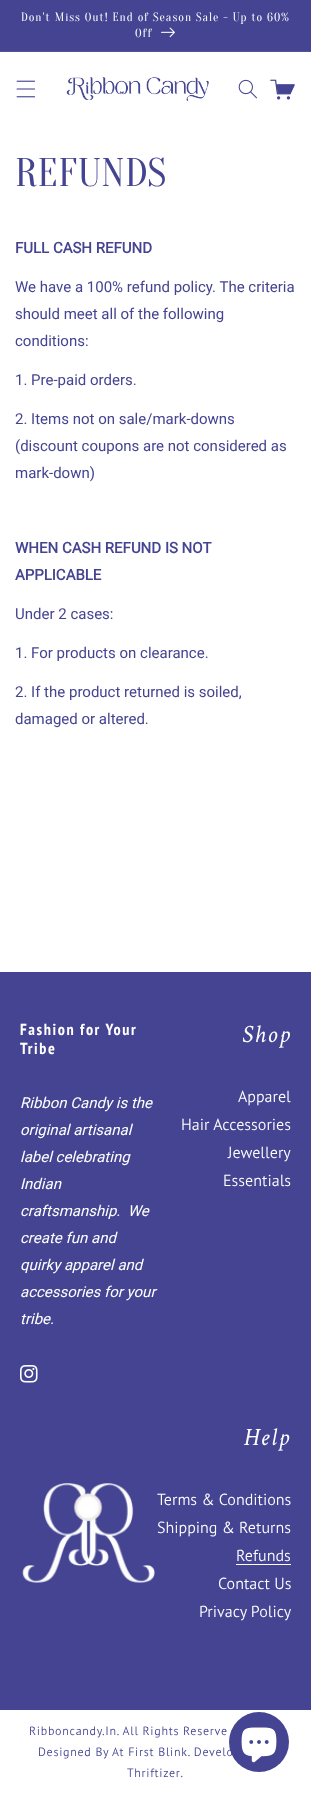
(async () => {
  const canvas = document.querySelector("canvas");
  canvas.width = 311;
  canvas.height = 1793;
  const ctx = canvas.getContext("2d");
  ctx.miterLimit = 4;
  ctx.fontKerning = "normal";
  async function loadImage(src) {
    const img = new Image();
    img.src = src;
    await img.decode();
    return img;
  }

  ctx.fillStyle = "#ffffff";
  ctx.fillRect(0, 0, 311, 1793);
  ctx.fillStyle = "#444492";
  ctx.fillRect(0, 0, 311, 51);
  ctx.fillStyle = "#53539b";
  ctx.fillRect(0, 51, 311, 1);
  ctx.drawImage(await loadImage("img/1.png"), 161, 27, 14, 11);
  ctx.drawImage(await loadImage("img/2.png"), 16, 80, 20, 18);
  ctx.drawImage(await loadImage("img/3.png"), 66, 77, 143, 24);
  ctx.drawImage(await loadImage("img/4.png"), 238, 79, 19, 20);
  ctx.drawImage(await loadImage("img/5.png"), 270, 79, 25, 21);
  ctx.fillStyle = "#444492";
  ctx.fillRect(0, 972, 311, 738);
  ctx.drawImage(await loadImage("img/6.png"), 20, 1365, 18, 18);
  ctx.drawImage(await loadImage("img/7.png"), 22, 1483, 133, 100);
  ctx.fillStyle = "#ffffff";
  ctx.fillRect(236, 1564, 55, 1);
  ctx.fillStyle = "#444492";
  ctx.beginPath();
  ctx.arc(259, 1742, 30, 0, Math.PI * 2);
  ctx.fill();
  ctx.drawImage(await loadImage("img/8.png"), 241, 1727, 36, 36);
  ctx.letterSpacing = "1px";
  ctx.font = "12px Oranienbaum";
  ctx.fillStyle = "#ffffff";
  ctx.fillText("Don't Miss Out! End of Season Sale - Up to 60%", 21, 21);
  ctx.fillText("Off", 135, 37);
  ctx.letterSpacing = "0.5px";
  ctx.font = "40px Oranienbaum";
  ctx.fillStyle = "#444492";
  ctx.fillText("REFUNDS", 15, 186);
  ctx.letterSpacing = "0px";
  ctx.font = "bold 15px Roboto";
  ctx.fillText("FULL CASH REFUND", 15, 253);
  ctx.font = "15px Roboto";
  for (const [text, x, y] of [
    ["We have a 100% refund policy. The criteria", 15, 292],
    ["should meet all of the following", 15, 319],
    ["conditions:", 15, 346],
    ["1. Pre-paid orders.", 15, 385],
    ["2. Items not on sale/mark-downs", 15, 424],
    ["(discount coupons are not considered as", 15, 451],
    ["mark-down)", 15, 478],
  ]) {
    ctx.fillText(text, x, y);
  }
  ctx.font = "bold 15px Roboto";
  ctx.fillText("WHEN CASH REFUND IS NOT", 15, 553);
  ctx.fillText("APPLICABLE", 15, 580);
  ctx.font = "15px Roboto";
  for (const [text, x, y] of [
    ["Under 2 cases:", 15, 619],
    ["1. For products on clearance.", 15, 658],
    ["2. If the product returned is soiled,", 15, 697],
    ["damaged or altered.", 15, 724],
  ]) {
    ctx.fillText(text, x, y);
  }
  ctx.letterSpacing = "1.6px";
  ctx.font = "bold 16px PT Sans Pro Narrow";
  ctx.fillStyle = "#ffffff";
  ctx.fillText("Fashion for Your", 20, 1035);
  ctx.fillText("Tribe", 20, 1054);
  ctx.letterSpacing = "0px";
  ctx.font = "italic 15px Roboto";
  for (const [text, x, y] of [
    ["Ribbon Candy is the", 20, 1108],
    ["original artisanal", 20, 1135],
    ["label celebrating", 20, 1162],
    ["Indian", 20, 1189],
    ["craftsmanship.  We", 20, 1216],
    ["create fun and", 20, 1243],
    ["quirky apparel and", 20, 1270],
    ["accessories for your", 20, 1297],
    ["tribe.", 20, 1324],
  ]) {
    ctx.fillText(text, x, y);
  }
  ctx.letterSpacing = "1.6px";
  ctx.font = "italic 25px Crimson Text";
  ctx.fillText("Shop", 242, 1042);
  ctx.letterSpacing = "0px";
  ctx.font = "300 16px PT Sans";
  for (const [text, x, y] of [
    ["Apparel", 238, 1102],
    ["Hair Accessories", 181, 1130],
    ["Jewellery", 228, 1158],
    ["Essentials", 223, 1186],
  ]) {
    ctx.fillText(text, x, y);
  }
  ctx.letterSpacing = "1.6px";
  ctx.font = "italic 25px Crimson Text";
  ctx.fillText("Help", 244, 1445);
  ctx.letterSpacing = "0px";
  ctx.font = "300 16px PT Sans";
  for (const [text, x, y] of [
    ["Terms & Conditions", 157, 1505],
    ["Shipping & Returns", 157, 1533],
    ["Refunds", 236, 1561],
    ["Contact Us", 218, 1589],
    ["Privacy Policy", 199, 1617],
  ]) {
    ctx.fillText(text, x, y);
  }
  ctx.letterSpacing = "0.7px";
  ctx.font = "300 12px PT Sans";
  ctx.fillStyle = "#444492";
  for (const [text, x, y] of [
    ["Ribboncandy.In. All Rights Reserve", 29, 1735],
    ["Designed By", 38, 1756],
    ["At First Blink. Develo", 112, 1756],
    ["Thriftizer.", 127, 1777],
  ]) {
    ctx.fillText(text, x, y);
  }
})();
